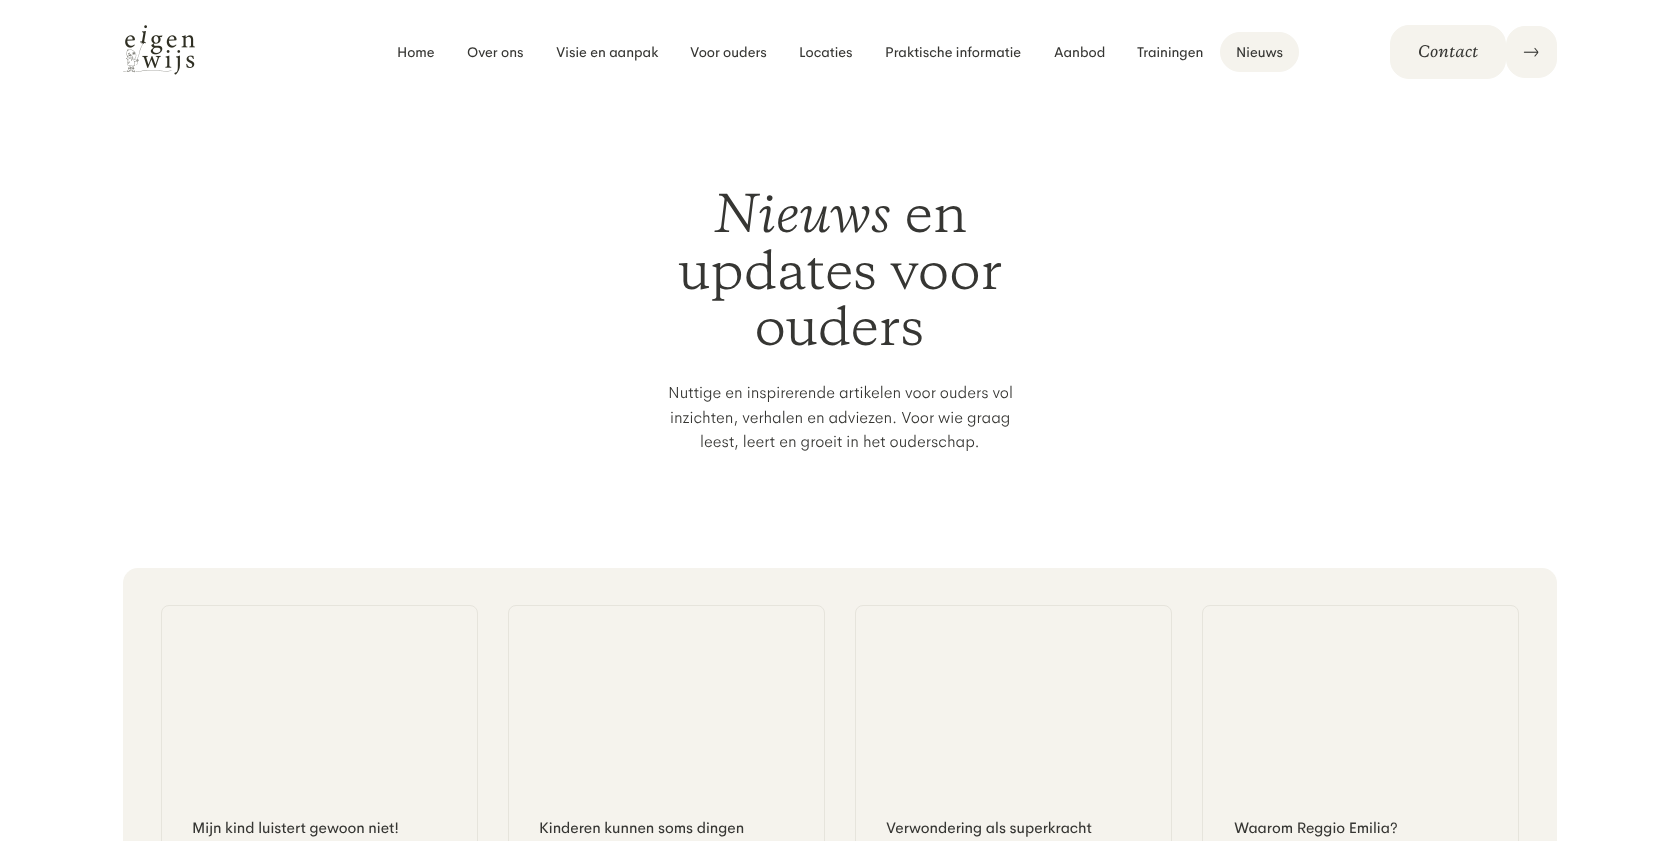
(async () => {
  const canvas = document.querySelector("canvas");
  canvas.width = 1680;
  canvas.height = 841;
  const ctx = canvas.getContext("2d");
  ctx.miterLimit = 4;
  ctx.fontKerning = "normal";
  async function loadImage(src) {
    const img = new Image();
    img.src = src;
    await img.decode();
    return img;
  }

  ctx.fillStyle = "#ffffff";
  ctx.fillRect(0, 0, 1680, 841);
  ctx.drawImage(await loadImage("img/1.png"), 123, 25, 72, 50);
  ctx.fillStyle = "#f5f3ed";
  ctx.beginPath();
  ctx.roundRect(1220.5, 32.5, 78, 39, 19.5);
  ctx.fill();
  ctx.strokeStyle = "#f5f3ed";
  ctx.stroke();
  ctx.beginPath();
  ctx.roundRect(1390.5, 25.5, 115, 53, 18.5);
  ctx.fill();
  ctx.stroke();
  ctx.beginPath();
  ctx.roundRect(1506.5, 26.5, 50, 51, 18.5);
  ctx.fill();
  ctx.stroke();
  ctx.drawImage(await loadImage("img/2.png"), 1523, 47, 16, 10);
  ctx.beginPath();
  ctx.roundRect(123, 568, 1434, 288, 15);
  ctx.fill();
  ctx.beginPath();
  ctx.roundRect(161.5, 605.5, 316, 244, 7.5);
  ctx.strokeStyle = "#e6e4dc";
  ctx.stroke();
  ctx.beginPath();
  ctx.roundRect(508.5, 605.5, 316, 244, 7.5);
  ctx.stroke();
  ctx.beginPath();
  ctx.roundRect(855.5, 605.5, 316, 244, 7.5);
  ctx.stroke();
  ctx.beginPath();
  ctx.roundRect(1202.5, 605.5, 316, 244, 7.5);
  ctx.stroke();
  ctx.font = "14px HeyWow";
  ctx.fillStyle = "#363633";
  for (const [text, x, y] of [
    ["Home", 397, 57],
    ["Over ons", 467, 57],
    ["Visie en aanpak", 556, 57],
    ["Voor ouders", 690, 57],
    ["Locaties", 799, 57],
    ["Praktische informatie", 885, 57],
    ["Aanbod", 1054, 57],
    ["Trainingen", 1137, 57],
    ["Nieuws", 1236, 57],
  ]) {
    ctx.fillText(text, x, y);
  }
  ctx.font = "italic 500 15.1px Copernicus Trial";
  ctx.fillText("Contact", 1418, 57);
  ctx.font = "italic 49px Copernicus Trial";
  ctx.fillText("Nieuws", 713, 232);
  ctx.font = "49px Copernicus Trial";
  for (const [text, x, y] of [
    ["en", 905, 232],
    ["updates voor", 678, 289],
    ["ouders", 755, 345],
  ]) {
    ctx.fillText(text, x, y);
  }
  ctx.font = "300 16.2px HeyWow";
  for (const [text, x, y] of [
    ["Nuttige en inspirerende artikelen voor ouders vol", 668, 398],
    ["inzichten, verhalen en adviezen. Voor wie graag", 670, 423],
    ["leest, leert en groeit in het ouderschap.", 700, 447],
  ]) {
    ctx.fillText(text, x, y);
  }
  ctx.font = "15.1px HeyWow";
  for (const [text, x, y] of [
    ["Mijn kind luistert gewoon niet!", 192, 833],
    ["Kinderen kunnen soms dingen", 539, 833],
    ["Verwondering als superkracht", 886, 833],
    ["Waarom Reggio Emilia?", 1234, 833],
  ]) {
    ctx.fillText(text, x, y);
  }
})();
